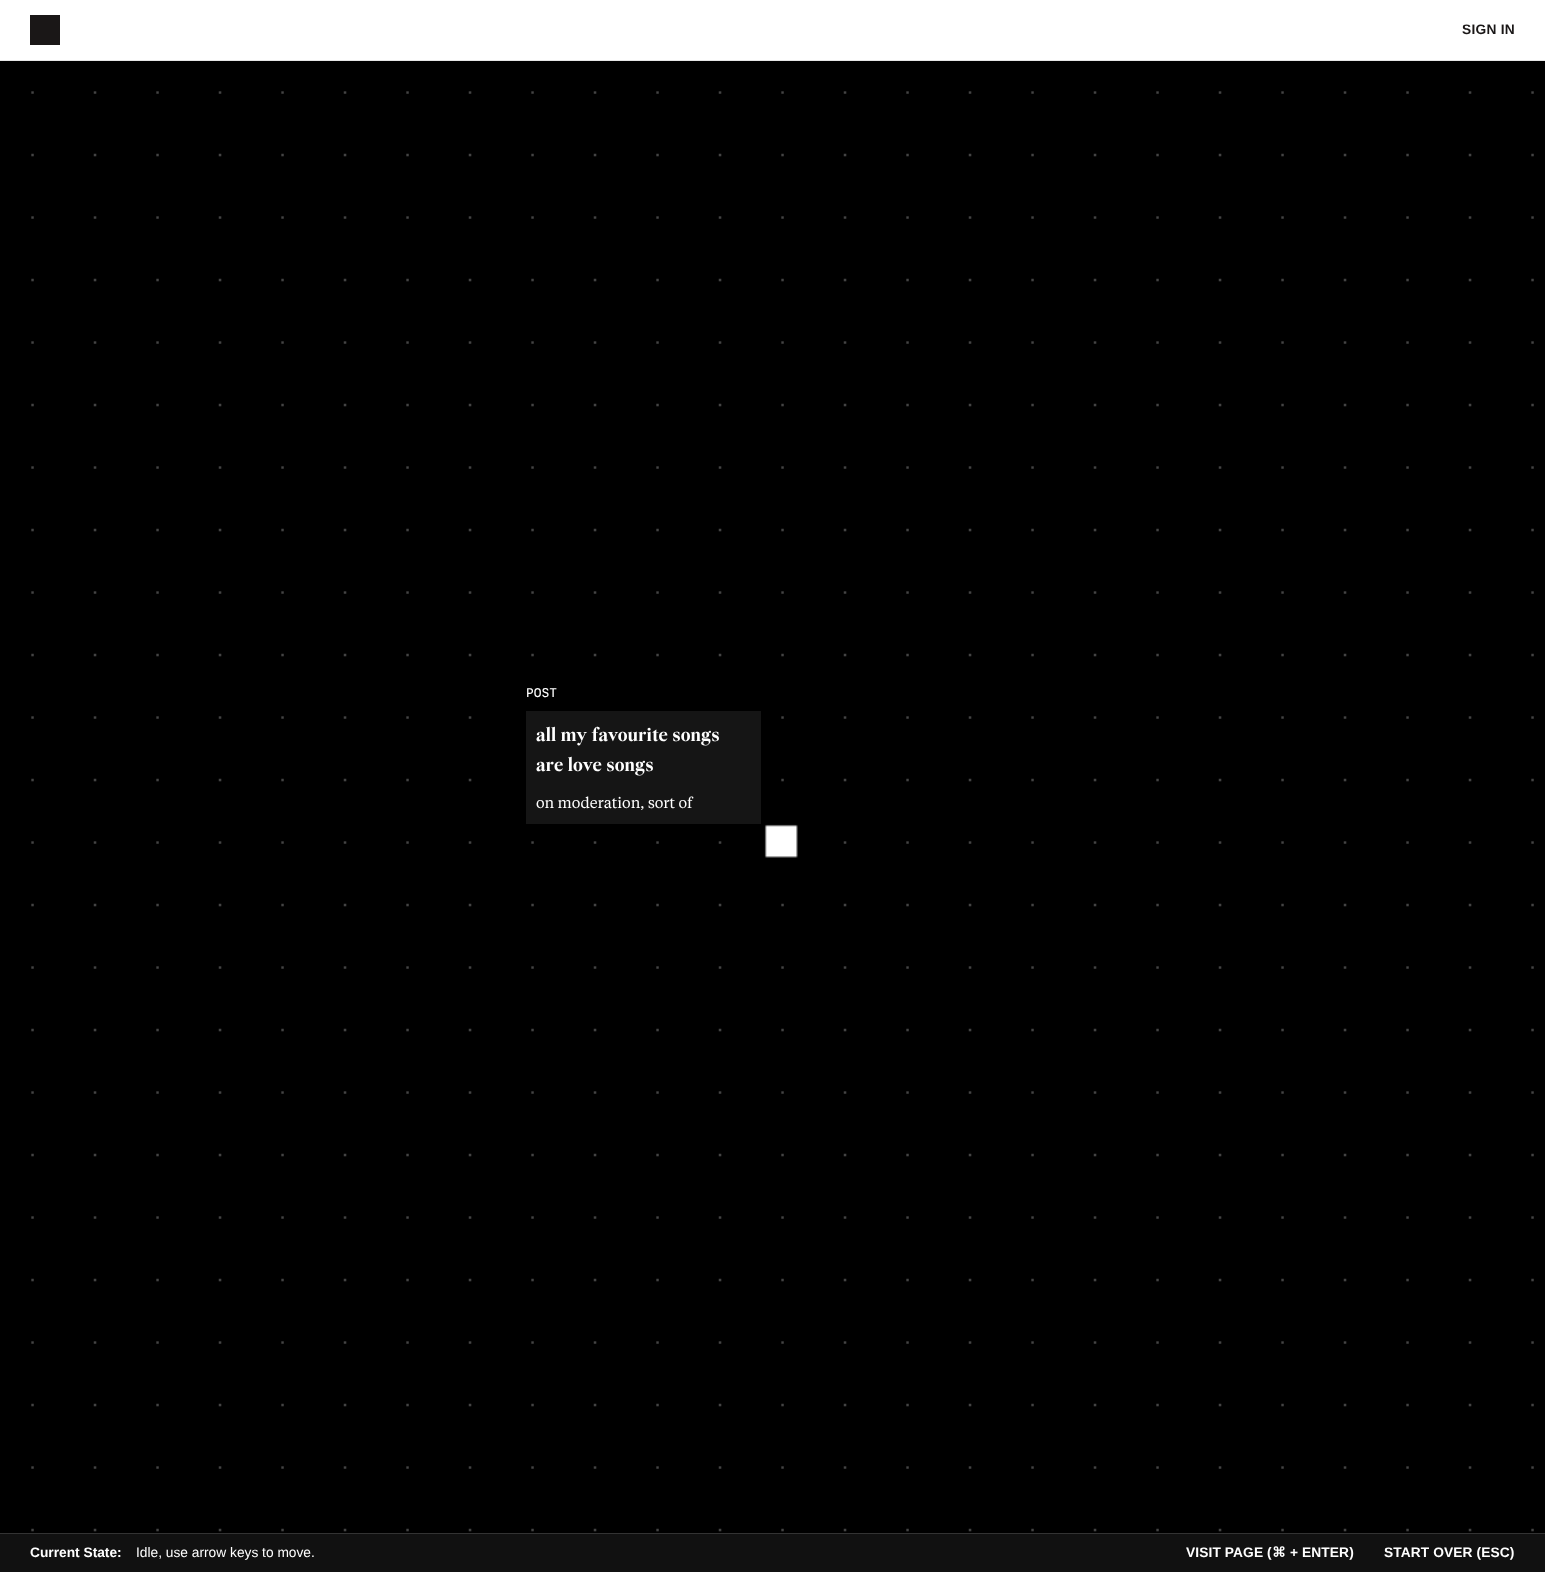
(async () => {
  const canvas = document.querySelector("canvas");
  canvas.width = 1545;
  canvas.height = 1572;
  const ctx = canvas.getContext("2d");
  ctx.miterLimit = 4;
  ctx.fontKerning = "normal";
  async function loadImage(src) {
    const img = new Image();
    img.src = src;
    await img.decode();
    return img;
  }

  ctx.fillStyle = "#000000";
  ctx.fillRect(0, 0, 1545, 1572);
  for (const [x, y, w, h, color] of [
    [0, 0, 1545, 60, "#ffffff"],
    [0, 60, 1545, 1, "#e6e6e6"],
    [30, 15, 30, 30, "#1a1717"],
  ]) {
    ctx.fillStyle = color;
    ctx.fillRect(x, y, w, h);
  }
  ctx.drawImage(await loadImage("img/1.png"), 31, 91, 1503, 1441);
  for (const [x, y, w, h, color] of [
    [526, 711, 235, 113, "#151515"],
    [0, 1534, 1545, 38, "#111111"],
    [0, 1533, 1545, 1, "#333333"],
  ]) {
    ctx.fillStyle = color;
    ctx.fillRect(x, y, w, h);
  }
  ctx.letterSpacing = "0.25px";
  ctx.font = "bold 13.75px Liberation Sans";
  ctx.fillStyle = "#1a1717";
  ctx.fillText("SIGN IN", 1462, 34);
  ctx.letterSpacing = "0px";
  ctx.font = "500 12.5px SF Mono";
  ctx.fillStyle = "#ffffff";
  ctx.fillText("POST", 526, 697);
  ctx.font = "bold 20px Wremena";
  ctx.fillText("all my favourite songs", 536, 741);
  ctx.fillText("are love songs", 536, 771);
  ctx.font = "15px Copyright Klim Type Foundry";
  ctx.fillText("on moderation, sort of", 536, 808);
  ctx.font = "bold 13.75px Liberation Sans";
  ctx.fillText("Current State:", 30, 1557);
  ctx.font = "13.75px Liberation Sans";
  ctx.fillText("Idle, use arrow keys to move.", 136, 1557);
  ctx.letterSpacing = "0.1px";
  ctx.font = "bold 13.75px Liberation Sans";
  ctx.fillText("VISIT PAGE (", 1186, 1557);
  ctx.font = "bold 13.75px DejaVu Sans";
  ctx.fillText("⌘", 1272, 1557);
  ctx.font = "bold 13.75px Liberation Sans";
  ctx.fillText("+ ENTER)", 1290, 1557);
  ctx.fillText("START OVER (ESC)", 1384, 1557);
})();
